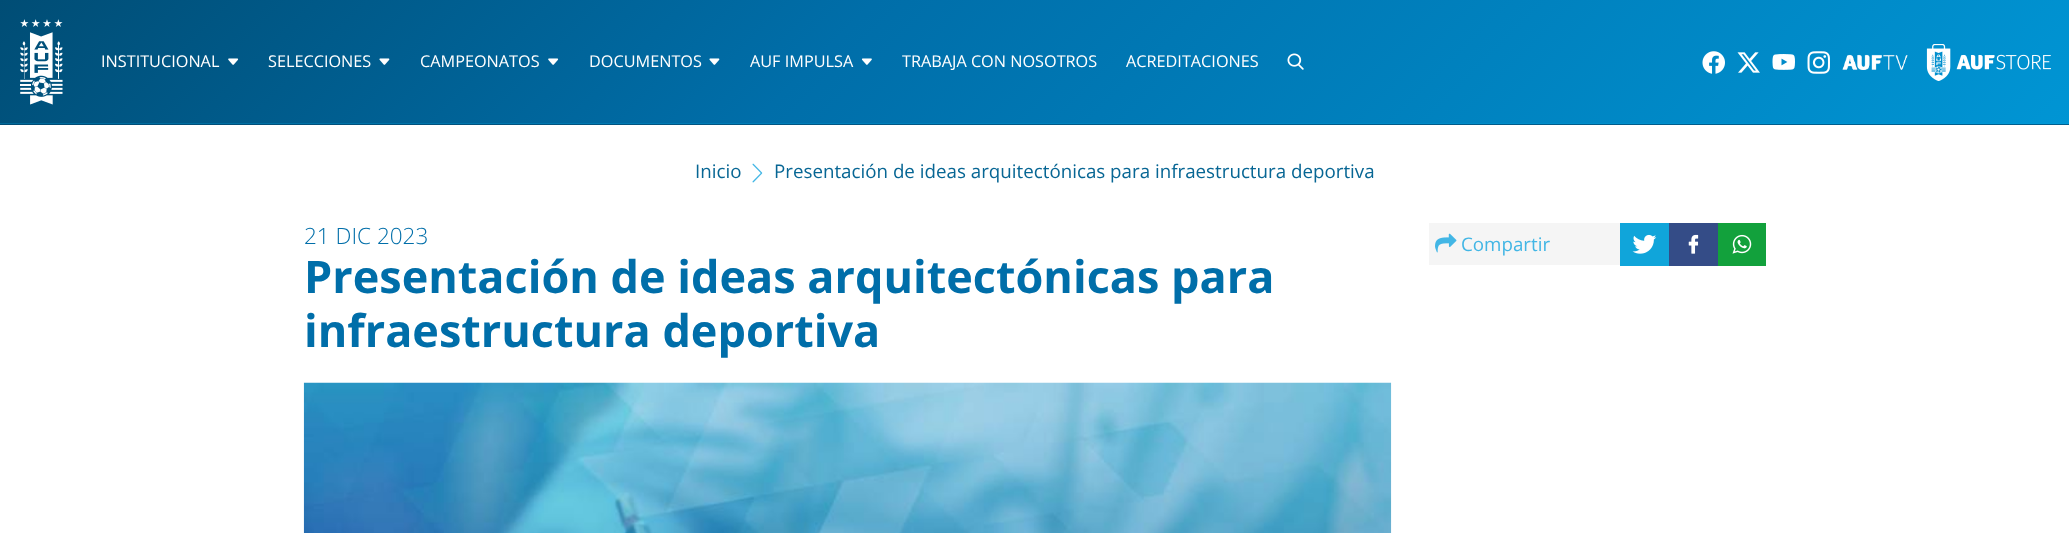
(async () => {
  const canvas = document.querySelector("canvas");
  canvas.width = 2069;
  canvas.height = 533;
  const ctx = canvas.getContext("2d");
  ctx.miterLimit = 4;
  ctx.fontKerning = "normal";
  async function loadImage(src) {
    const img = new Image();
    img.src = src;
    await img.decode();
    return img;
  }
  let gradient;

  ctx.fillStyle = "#ffffff";
  ctx.fillRect(0, 0, 2069, 533);
  gradient = ctx.createLinearGradient(487, -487, 1583, 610);
  gradient.addColorStop(0, "#004d75");
  gradient.addColorStop(0.4, "#006ea9");
  gradient.addColorStop(1, "#0095d4");
  ctx.fillStyle = gradient;
  ctx.fillRect(0, 0, 2069, 123);
  gradient = ctx.createLinearGradient(487, -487, 1583, 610);
  gradient.addColorStop(0, "#006593");
  gradient.addColorStop(0.4, "#007db8");
  gradient.addColorStop(1, "#0099d7");
  ctx.fillStyle = gradient;
  ctx.fillRect(0, 123, 2069, 1);
  gradient = ctx.createLinearGradient(487, -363, 1583, 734);
  gradient.addColorStop(0, "#004c75");
  gradient.addColorStop(0.4, "#005684");
  gradient.addColorStop(1, "#006090");
  ctx.fillStyle = gradient;
  ctx.fillRect(0, 124, 2069, 1);
  ctx.drawImage(await loadImage("img/1.png"), 20, 19, 43, 86);
  ctx.drawImage(await loadImage("img/2.png"), 228, 58, 11, 7);
  ctx.drawImage(await loadImage("img/3.png"), 379, 58, 11, 7);
  ctx.drawImage(await loadImage("img/4.png"), 548, 58, 11, 7);
  ctx.drawImage(await loadImage("img/5.png"), 709, 58, 11, 7);
  ctx.drawImage(await loadImage("img/6.png"), 861, 58, 11, 7);
  ctx.drawImage(await loadImage("img/7.png"), 1287, 53, 17, 17);
  ctx.drawImage(await loadImage("img/8.png"), 1702, 51, 23, 23);
  ctx.drawImage(await loadImage("img/9.png"), 1737, 52, 23, 21);
  ctx.drawImage(await loadImage("img/10.png"), 1772, 54, 23, 16);
  ctx.drawImage(await loadImage("img/11.png"), 1807, 51, 23, 23);
  ctx.drawImage(await loadImage("img/12.png"), 1842, 54, 66, 16);
  ctx.drawImage(await loadImage("img/13.png"), 1926, 44, 125, 37);
  ctx.drawImage(await loadImage("img/14.png"), 752, 163, 11, 20);
  ctx.drawImage(await loadImage("img/15.png"), 303, 382, 1089, 151);
  ctx.fillStyle = "#f5f5f5";
  ctx.fillRect(1429, 223, 191, 42);
  ctx.drawImage(await loadImage("img/16.png"), 1435, 233, 22, 20);
  ctx.fillStyle = "#10a5da";
  ctx.fillRect(1620, 223, 49, 43);
  ctx.drawImage(await loadImage("img/17.png"), 1632, 234, 25, 20);
  ctx.fillStyle = "#344c87";
  ctx.fillRect(1669, 223, 49, 43);
  ctx.drawImage(await loadImage("img/18.png"), 1688, 234, 11, 20);
  ctx.fillStyle = "#12a13c";
  ctx.fillRect(1718, 223, 48, 43);
  ctx.drawImage(await loadImage("img/19.png"), 1732, 234, 20, 20);
  ctx.font = "16.25px Open Sans";
  ctx.fillStyle = "#ffffff";
  for (const [text, x, y] of [
    ["INSTITUCIONAL", 101, 67],
    ["SELECCIONES", 268, 67],
    ["CAMPEONATOS", 420, 67],
    ["DOCUMENTOS", 589, 67],
    ["AUF IMPULSA", 750, 67],
    ["TRABAJA CON NOSOTROS", 902, 67],
    ["ACREDITACIONES", 1126, 67],
  ]) {
    ctx.fillText(text, x, y);
  }
  ctx.font = "18.75px Open Sans";
  ctx.fillStyle = "#076694";
  ctx.fillText("Inicio", 695, 178);
  ctx.fillText("Presentación de ideas arquitectónicas para infraestructura deportiva", 774, 178);
  ctx.font = "300 22.5px Open Sans";
  ctx.fillStyle = "#006ea9";
  ctx.fillText("21 DIC 2023", 304, 244);
  ctx.font = "bold 45px Open Sans";
  ctx.fillText("Presentación de ideas arquitectónicas para", 304, 293);
  ctx.fillText("infraestructura deportiva", 304, 347);
  ctx.font = "18.75px Open Sans";
  ctx.fillStyle = "#42b6e5";
  ctx.fillText("Compartir", 1461, 251);
})();
